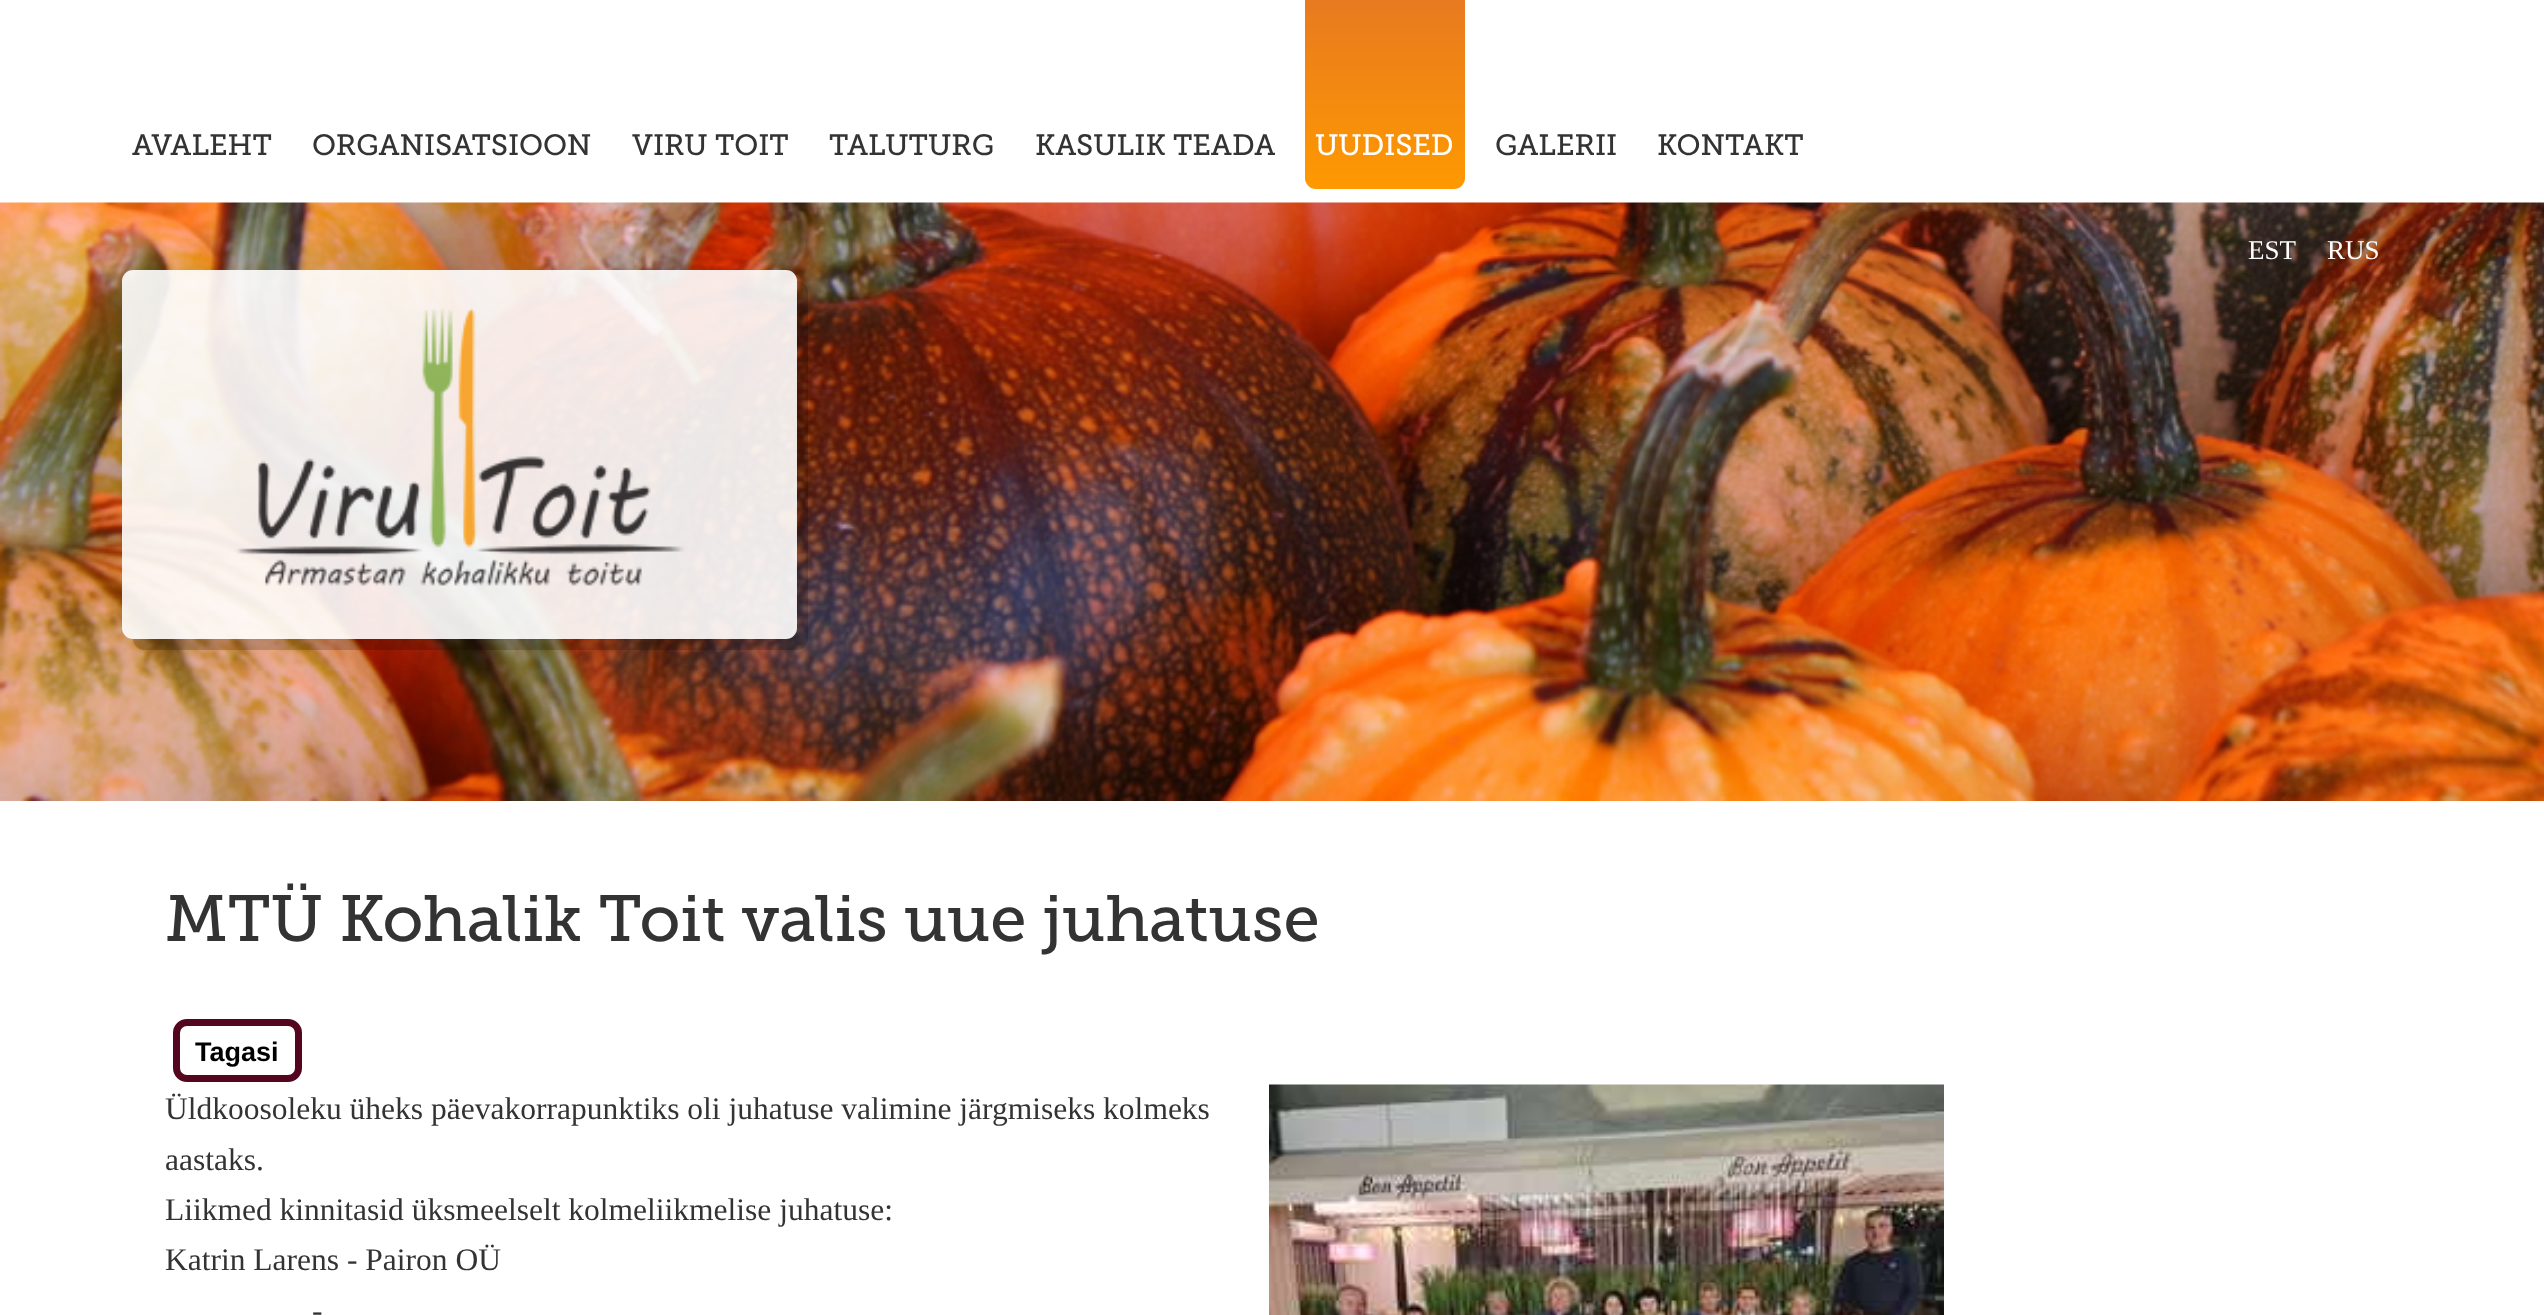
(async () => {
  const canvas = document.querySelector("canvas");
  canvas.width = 2544;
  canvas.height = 1315;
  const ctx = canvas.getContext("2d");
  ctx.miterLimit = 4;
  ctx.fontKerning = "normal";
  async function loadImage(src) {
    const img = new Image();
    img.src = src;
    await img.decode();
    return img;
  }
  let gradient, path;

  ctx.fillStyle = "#ffffff";
  ctx.fillRect(0, 0, 2544, 1315);
  gradient = ctx.createLinearGradient(1305, 0, 1305, 189);
  gradient.addColorStop(0, "#e87a20");
  gradient.addColorStop(1, "#ff9900");
  ctx.fillStyle = gradient;
  ctx.beginPath();
  ctx.roundRect(1305, 0, 160, 189, [0, 0, 11, 11]);
  ctx.fill();
  ctx.drawImage(await loadImage("img/1.png"), 0, 202, 2544, 599);
  ctx.fillStyle = "rgba(0, 0, 0, 0.18)";
  path = new Path2D("M133 639C133 645 138 650 144 650H797C803 650 808 645 808 639V292C808 286 803 281 797 281H796V628C796 634 791 639 785 639Z");
  ctx.fill(path);
  ctx.fillStyle = "rgba(255, 255, 255, 0.9)";
  ctx.beginPath();
  ctx.roundRect(122, 270, 675, 369, 11);
  ctx.fill();
  ctx.drawImage(await loadImage("img/2.png"), 235, 307, 449, 279);
  ctx.beginPath();
  ctx.roundRect(176.5, 1022.5, 122, 56, 10.5);
  ctx.strokeStyle = "#53061e";
  ctx.lineWidth = 7;
  ctx.stroke();
  ctx.drawImage(await loadImage("img/3.png"), 1269, 1084, 675, 231);
  ctx.font = "29.25px Museo Slab";
  ctx.fillStyle = "#333333";
  for (const [text, x, y] of [
    ["AVALEHT", 132, 155],
    ["ORGANISATSIOON", 312, 155],
    ["VIRU TOIT", 632, 155],
    ["TALUTURG", 829, 155],
    ["KASULIK TEADA", 1035, 155],
  ]) {
    ctx.fillText(text, x, y);
  }
  ctx.fillStyle = "#ffffff";
  ctx.fillText("UUDISED", 1315, 155);
  ctx.fillStyle = "#333333";
  ctx.fillText("GALERII", 1495, 155);
  ctx.fillText("KONTAKT", 1657, 155);
  ctx.font = "27px Liberation Serif";
  ctx.fillStyle = "#ffffff";
  ctx.fillText("EST", 2248, 259);
  ctx.fillText("RUS", 2327, 259);
  ctx.font = "65.25px Museo Slab";
  ctx.fillStyle = "#333333";
  ctx.fillText("MTÜ Kohalik Toit valis uue juhatuse", 165, 941);
  ctx.font = "bold 27px Liberation Sans";
  ctx.fillStyle = "#000000";
  ctx.fillText("Tagasi", 195, 1061);
  ctx.font = "31.5px Liberation Serif";
  ctx.fillStyle = "#333333";
  for (const [text, x, y] of [
    ["Üldkoosoleku üheks päevakorrapunktiks oli juhatuse valimine järgmiseks kolmeks", 165, 1119],
    ["aastaks.", 165, 1170],
    ["Liikmed kinnitasid üksmeelselt kolmeliikmelise juhatuse:", 165, 1220],
    ["Katrin Larens - Pairon OÜ", 165, 1270],
    ["-", 312, 1321],
  ]) {
    ctx.fillText(text, x, y);
  }
})();
